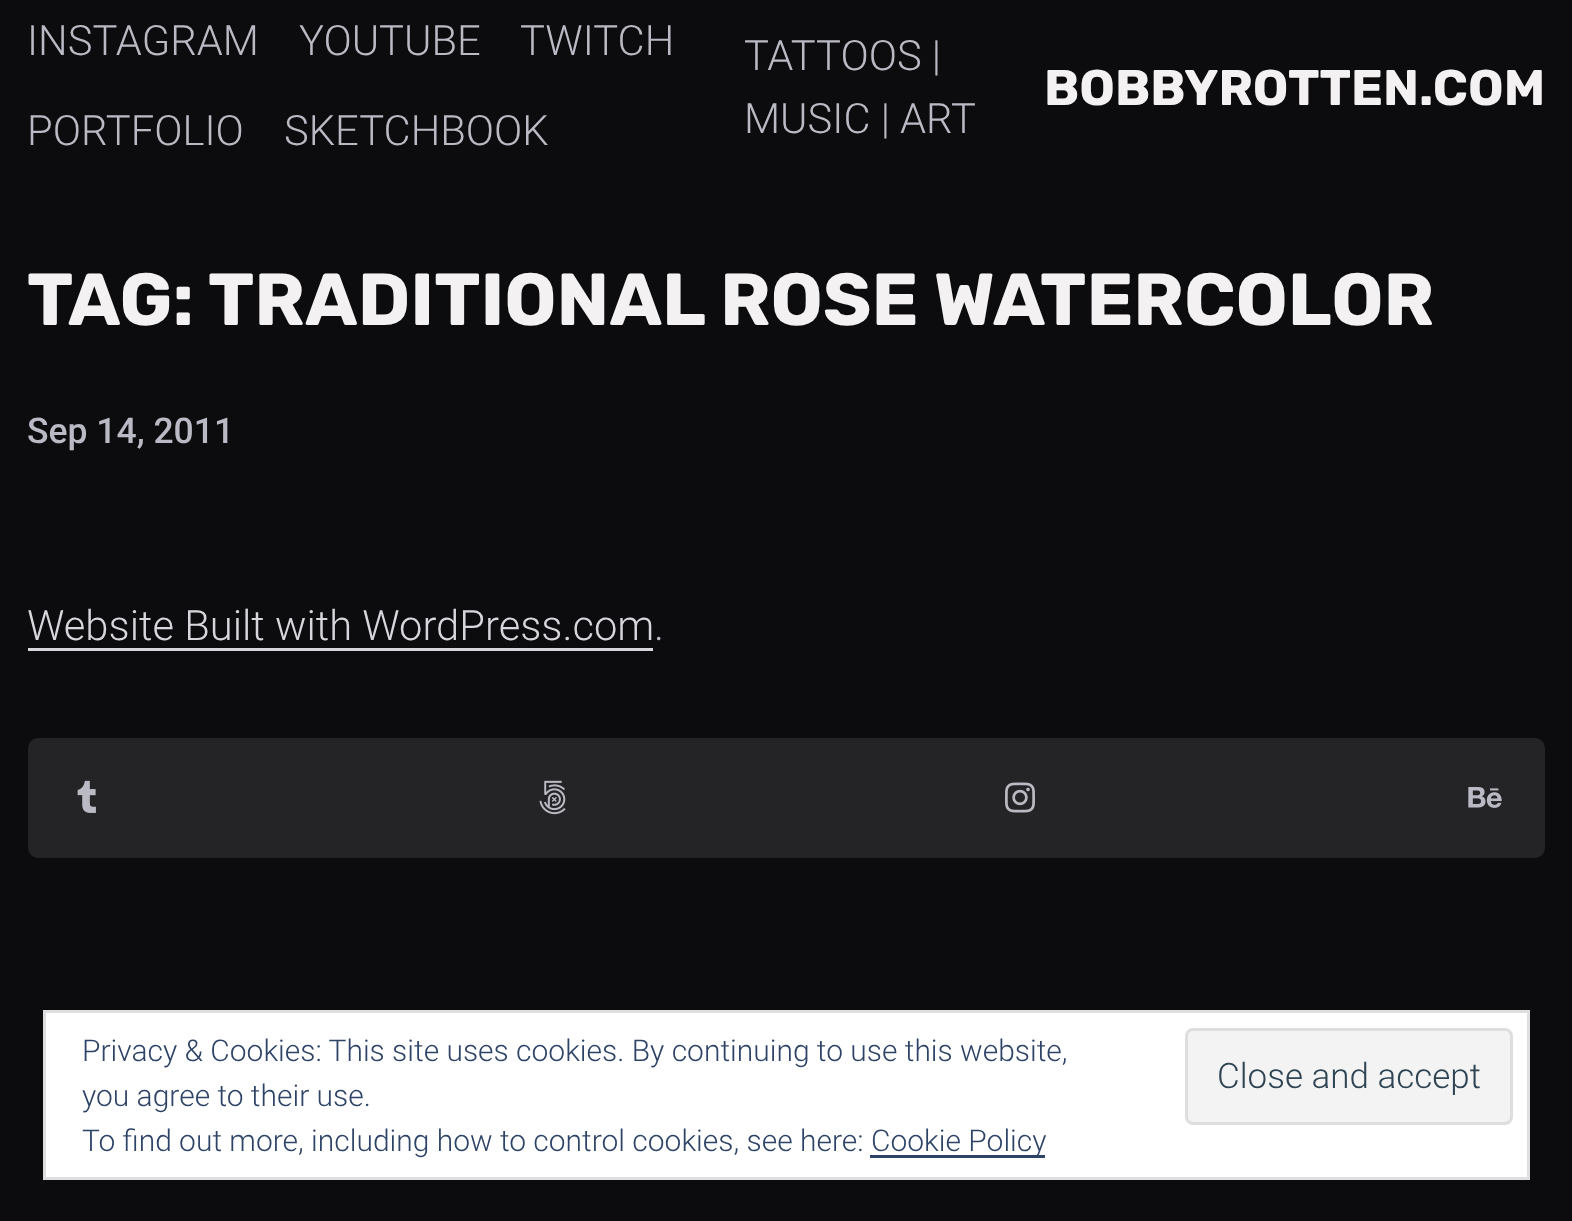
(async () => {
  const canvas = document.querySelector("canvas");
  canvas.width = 1572;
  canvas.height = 1221;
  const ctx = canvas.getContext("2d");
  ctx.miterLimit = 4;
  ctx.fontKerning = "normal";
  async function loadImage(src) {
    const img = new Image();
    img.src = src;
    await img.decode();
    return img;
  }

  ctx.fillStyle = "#0c0c0e";
  ctx.fillRect(0, 0, 1572, 1221);
  ctx.fillStyle = "#d6d6dc";
  ctx.fillRect(28, 648, 625, 3);
  ctx.fillStyle = "#242426";
  ctx.beginPath();
  ctx.roundRect(28, 738, 1517, 120, 10);
  ctx.fill();
  ctx.drawImage(await loadImage("img/1.png"), 77, 780, 19, 33);
  ctx.drawImage(await loadImage("img/2.png"), 539, 780, 27, 35);
  ctx.drawImage(await loadImage("img/3.png"), 1005, 782, 30, 31);
  ctx.drawImage(await loadImage("img/4.png"), 1468, 787, 34, 21);
  ctx.fillStyle = "#ffffff";
  ctx.beginPath();
  ctx.rect(44.5, 1011.5, 1484, 167);
  ctx.fill();
  ctx.strokeStyle = "#dedede";
  ctx.lineWidth = 3;
  ctx.stroke();
  ctx.fillStyle = "#f3f3f3";
  ctx.beginPath();
  ctx.roundRect(1186.5, 1029.5, 325, 94, 6.5);
  ctx.fill();
  ctx.stroke();
  ctx.fillStyle = "#2e4467";
  ctx.fillRect(870, 1155, 175, 3);
  ctx.font = "300 41.75px Roboto";
  ctx.fillStyle = "#babac4";
  for (const [text, x, y] of [
    ["INSTAGRAM", 27, 55],
    ["YOUTUBE", 299, 55],
    ["TWITCH", 520, 55],
    ["PORTFOLIO", 27, 145],
    ["SKETCHBOOK", 284, 145],
    ["TATTOOS |", 744, 70],
    ["MUSIC | ART", 744, 133],
  ]) {
    ctx.fillText(text, x, y);
  }
  ctx.font = "bold 50.1px Rubik";
  ctx.fillStyle = "#f3f1f1";
  ctx.fillText("BOBBYROTTEN.COM", 1044, 105);
  ctx.font = "bold 73.5px Rubik";
  ctx.fillText("TAG:", 27, 325);
  ctx.fillText("TRADITIONAL ROSE WATERCOLOR", 208, 325);
  ctx.font = "500 35.5px Roboto";
  ctx.fillStyle = "#babac4";
  ctx.fillText("Sep 14, 2011", 27, 443);
  ctx.font = "300 41.75px Roboto";
  ctx.fillStyle = "#d6d6dc";
  ctx.fillText("Website Built with WordPress.com", 27, 640);
  ctx.fillStyle = "#babac4";
  ctx.fillText(".", 654, 640);
  ctx.font = "300 30px Roboto";
  ctx.fillStyle = "#2e4467";
  ctx.fillText("Privacy & Cookies: This site uses cookies. By continuing to use this website,", 82, 1061);
  ctx.fillText("you agree to their use.", 82, 1106);
  ctx.font = "300 35px Roboto";
  ctx.fillStyle = "#2e4453";
  ctx.fillText("Close and accept", 1217, 1088);
  ctx.font = "300 30px Roboto";
  ctx.fillStyle = "#2e4467";
  ctx.fillText("To find out more, including how to control cookies, see here:", 82, 1151);
  ctx.fillText("Cookie Policy", 871, 1151);
})();
